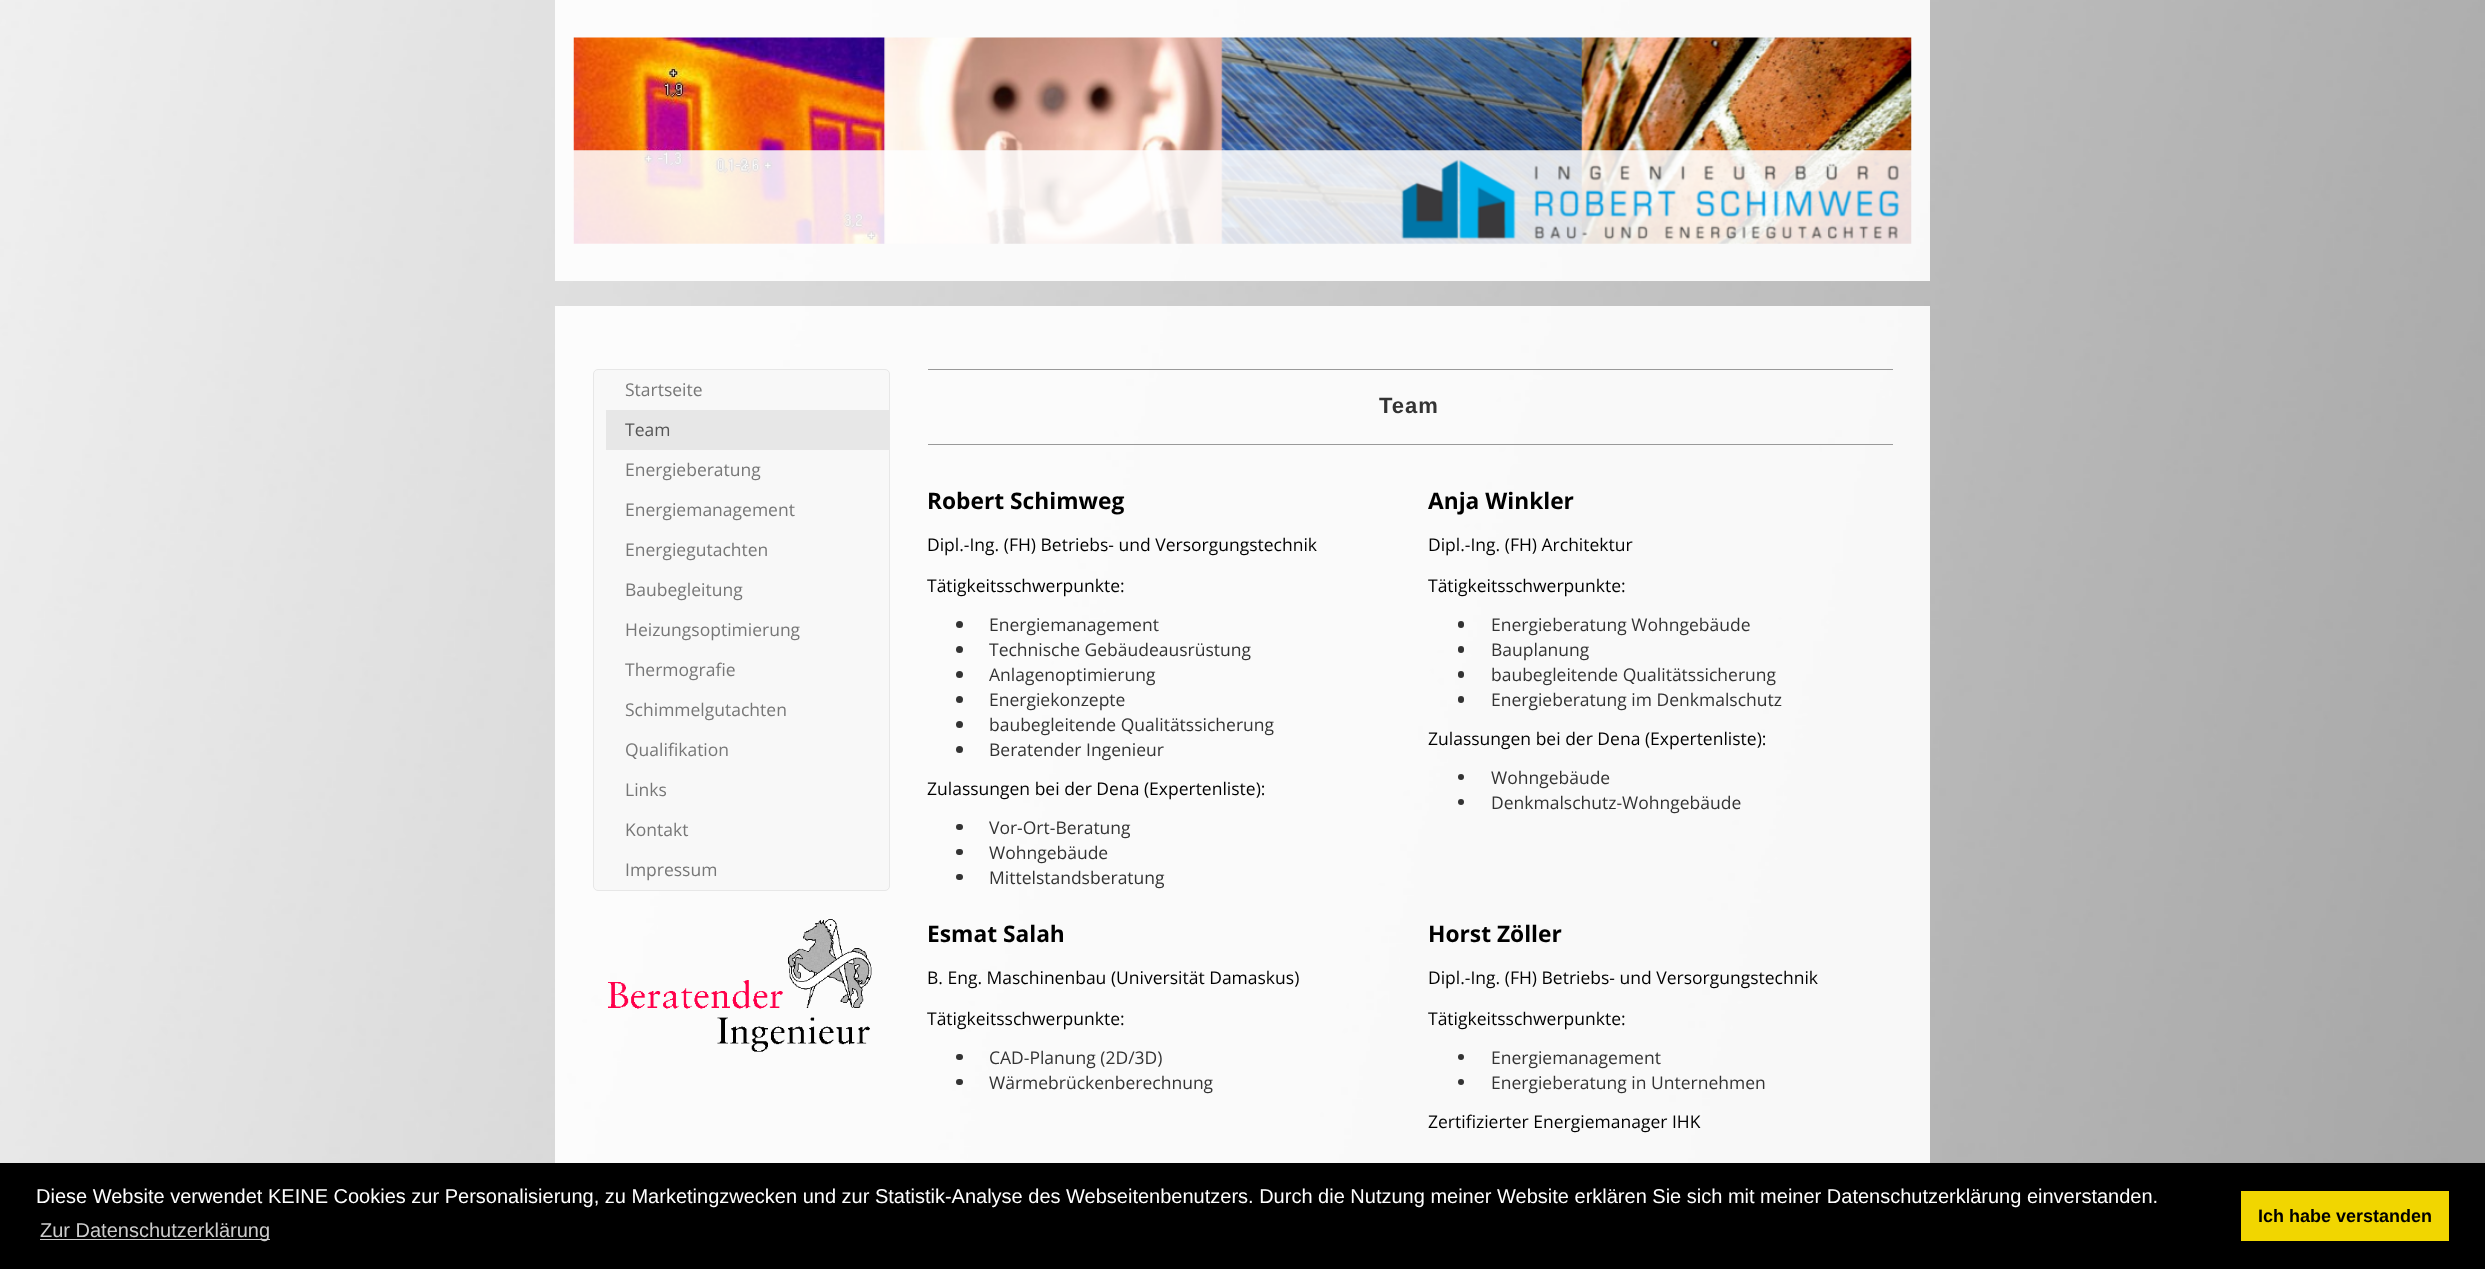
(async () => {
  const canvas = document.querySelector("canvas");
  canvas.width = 2485;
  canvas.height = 1269;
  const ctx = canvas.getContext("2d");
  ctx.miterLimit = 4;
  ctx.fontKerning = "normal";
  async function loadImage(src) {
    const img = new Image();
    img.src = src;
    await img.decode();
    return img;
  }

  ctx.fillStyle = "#ffffff";
  ctx.fillRect(0, 0, 2485, 1269);
  ctx.drawImage(await loadImage("img/1.png"), 0, 0, 2485, 1163);
  ctx.fillStyle = "rgba(255, 255, 255, 0.9)";
  ctx.fillRect(555, 0, 1375, 281);
  ctx.drawImage(await loadImage("img/2.png"), 573, 37, 1339, 207);
  ctx.fillRect(555, 306, 1375, 857);
  ctx.fillStyle = "#f8f8f8";
  ctx.beginPath();
  ctx.roundRect(593.5, 369.5, 296, 521, 4.5);
  ctx.fill();
  ctx.strokeStyle = "#e7e7e7";
  ctx.stroke();
  ctx.fillStyle = "#e7e7e7";
  ctx.fillRect(606, 410, 283, 40);
  ctx.drawImage(await loadImage("img/3.png"), 608, 919, 264, 133);
  ctx.fillStyle = "#999999";
  ctx.fillRect(928, 369, 965, 1);
  ctx.fillRect(928, 444, 965, 1);
  ctx.fillStyle = "#333333";
  ctx.beginPath();
  ctx.arc(959.5, 624.5, 3.5, 0, Math.PI * 2);
  ctx.fill();
  ctx.beginPath();
  ctx.arc(959.5, 649.5, 3.5, 0, Math.PI * 2);
  ctx.fill();
  ctx.beginPath();
  ctx.arc(959.5, 674.5, 3.5, 0, Math.PI * 2);
  ctx.fill();
  ctx.beginPath();
  ctx.arc(959.5, 699.5, 3.5, 0, Math.PI * 2);
  ctx.fill();
  ctx.beginPath();
  ctx.arc(959.5, 724.5, 3.5, 0, Math.PI * 2);
  ctx.fill();
  ctx.beginPath();
  ctx.arc(959.5, 749.5, 3.5, 0, Math.PI * 2);
  ctx.fill();
  ctx.beginPath();
  ctx.roundRect(956, 824, 7, 6, 3);
  ctx.fill();
  ctx.beginPath();
  ctx.roundRect(956, 849, 7, 6, 3);
  ctx.fill();
  ctx.beginPath();
  ctx.roundRect(956, 874, 7, 6, 3);
  ctx.fill();
  ctx.beginPath();
  ctx.roundRect(1458, 621, 6, 7, 3);
  ctx.fill();
  ctx.beginPath();
  ctx.roundRect(1458, 646, 6, 7, 3);
  ctx.fill();
  ctx.beginPath();
  ctx.roundRect(1458, 671, 6, 7, 3);
  ctx.fill();
  ctx.beginPath();
  ctx.roundRect(1458, 696, 6, 7, 3);
  ctx.fill();
  ctx.beginPath();
  ctx.arc(1461, 777, 3, 0, Math.PI * 2);
  ctx.fill();
  ctx.beginPath();
  ctx.arc(1461, 802, 3, 0, Math.PI * 2);
  ctx.fill();
  ctx.beginPath();
  ctx.roundRect(956, 1054, 7, 6, 3);
  ctx.fill();
  ctx.beginPath();
  ctx.roundRect(956, 1079, 7, 6, 3);
  ctx.fill();
  ctx.beginPath();
  ctx.arc(1461, 1057, 3, 0, Math.PI * 2);
  ctx.fill();
  ctx.beginPath();
  ctx.arc(1461, 1082, 3, 0, Math.PI * 2);
  ctx.fill();
  for (const [x, y, w, h, color] of [
    [0, 1163, 2485, 106, "#000000"],
    [40, 1239, 230, 1, "#cccccc"],
    [2241, 1191, 208, 50, "#f1d600"],
  ]) {
    ctx.fillStyle = color;
    ctx.fillRect(x, y, w, h);
  }
  ctx.font = "17.5px Open Sans";
  ctx.fillStyle = "#777777";
  ctx.fillText("Startseite", 625, 396);
  ctx.fillStyle = "#555555";
  ctx.fillText("Team", 625, 436);
  ctx.fillStyle = "#777777";
  for (const [text, x, y] of [
    ["Energieberatung", 625, 476],
    ["Energiemanagement", 625, 516],
    ["Energiegutachten", 625, 556],
    ["Baubegleitung", 625, 596],
    ["Heizungsoptimierung", 625, 636],
    ["Thermografie", 625, 676],
    ["Schimmelgutachten", 625, 716],
    ["Qualifikation", 625, 756],
    ["Links", 625, 796],
    ["Kontakt", 625, 836],
    ["Impressum", 625, 876],
  ]) {
    ctx.fillText(text, x, y);
  }
  ctx.letterSpacing = "1px";
  ctx.font = "bold 22px Liberation Sans";
  ctx.fillStyle = "#333333";
  ctx.fillText("Team", 1379, 413);
  ctx.letterSpacing = "0px";
  ctx.font = "bold 22.75px Open Sans";
  ctx.fillStyle = "#000000";
  ctx.fillText("Robert Schimweg", 927, 509);
  ctx.font = "17.5px Open Sans";
  ctx.fillText("Dipl.-Ing. (FH) Betriebs- und Versorgungstechnik", 927, 551);
  ctx.fillText("Tätigkeitsschwerpunkte:", 927, 592);
  ctx.fillStyle = "#333333";
  for (const [text, x, y] of [
    ["Energiemanagement", 989, 631],
    ["Technische Gebäudeausrüstung", 989, 656],
    ["Anlagenoptimierung", 989, 681],
    ["Energiekonzepte", 989, 706],
    ["baubegleitende Qualitätssicherung", 989, 731],
    ["Beratender Ingenieur", 989, 756],
  ]) {
    ctx.fillText(text, x, y);
  }
  ctx.fillStyle = "#000000";
  ctx.fillText("Zulassungen bei der Dena (Expertenliste):", 927, 795);
  ctx.fillStyle = "#333333";
  for (const [text, x, y] of [
    ["Vor-Ort-Beratung", 989, 834],
    ["Wohngebäude", 989, 859],
    ["Mittelstandsberatung", 989, 884],
  ]) {
    ctx.fillText(text, x, y);
  }
  ctx.font = "bold 22.75px Open Sans";
  ctx.fillStyle = "#000000";
  ctx.fillText("Anja Winkler", 1428, 509);
  ctx.font = "17.5px Open Sans";
  ctx.fillText("Dipl.-Ing. (FH) Architektur", 1428, 551);
  ctx.fillText("Tätigkeitsschwerpunkte:", 1428, 592);
  ctx.fillStyle = "#333333";
  for (const [text, x, y] of [
    ["Energieberatung Wohngebäude", 1491, 631],
    ["Bauplanung", 1491, 656],
    ["baubegleitende Qualitätssicherung", 1491, 681],
    ["Energieberatung im Denkmalschutz", 1491, 706],
  ]) {
    ctx.fillText(text, x, y);
  }
  ctx.fillStyle = "#000000";
  ctx.fillText("Zulassungen bei der Dena (Expertenliste):", 1428, 745);
  ctx.fillStyle = "#333333";
  ctx.fillText("Wohngebäude", 1491, 784);
  ctx.fillText("Denkmalschutz-Wohngebäude", 1491, 809);
  ctx.font = "bold 22.75px Open Sans";
  ctx.fillStyle = "#000000";
  ctx.fillText("Esmat Salah", 927, 942);
  ctx.font = "17.5px Open Sans";
  ctx.fillText("B. Eng. Maschinenbau (Universität Damaskus)", 927, 984);
  ctx.fillText("Tätigkeitsschwerpunkte:", 927, 1025);
  ctx.fillStyle = "#333333";
  ctx.fillText("CAD-Planung (2D/3D)", 989, 1064);
  ctx.fillText("Wärmebrückenberechnung", 989, 1089);
  ctx.font = "bold 22.75px Open Sans";
  ctx.fillStyle = "#000000";
  ctx.fillText("Horst Zöller", 1428, 942);
  ctx.font = "17.5px Open Sans";
  ctx.fillText("Dipl.-Ing. (FH) Betriebs- und Versorgungstechnik", 1428, 984);
  ctx.fillText("Tätigkeitsschwerpunkte:", 1428, 1025);
  ctx.fillStyle = "#333333";
  ctx.fillText("Energiemanagement", 1491, 1064);
  ctx.fillText("Energieberatung in Unternehmen", 1491, 1089);
  ctx.fillStyle = "#000000";
  ctx.fillText("Zertifizierter Energiemanager IHK", 1428, 1128);
  ctx.font = "20px Liberation Sans";
  ctx.fillStyle = "#ffffff";
  ctx.fillText("Diese Website verwendet KEINE Cookies zur Personalisierung, zu Marketingzwecken und zur Statistik-Analyse des Webseitenbenutzers. Durch die Nutzung meiner Website erklären Sie sich mit meiner Datenschutzerklärung einverstanden.", 36, 1203);
  ctx.fillStyle = "#cccccc";
  ctx.fillText("Zur Datenschutzerklärung", 40, 1237);
  ctx.font = "bold 18px Liberation Sans";
  ctx.fillStyle = "#000000";
  ctx.fillText("Ich habe verstanden", 2258, 1222);
})();
